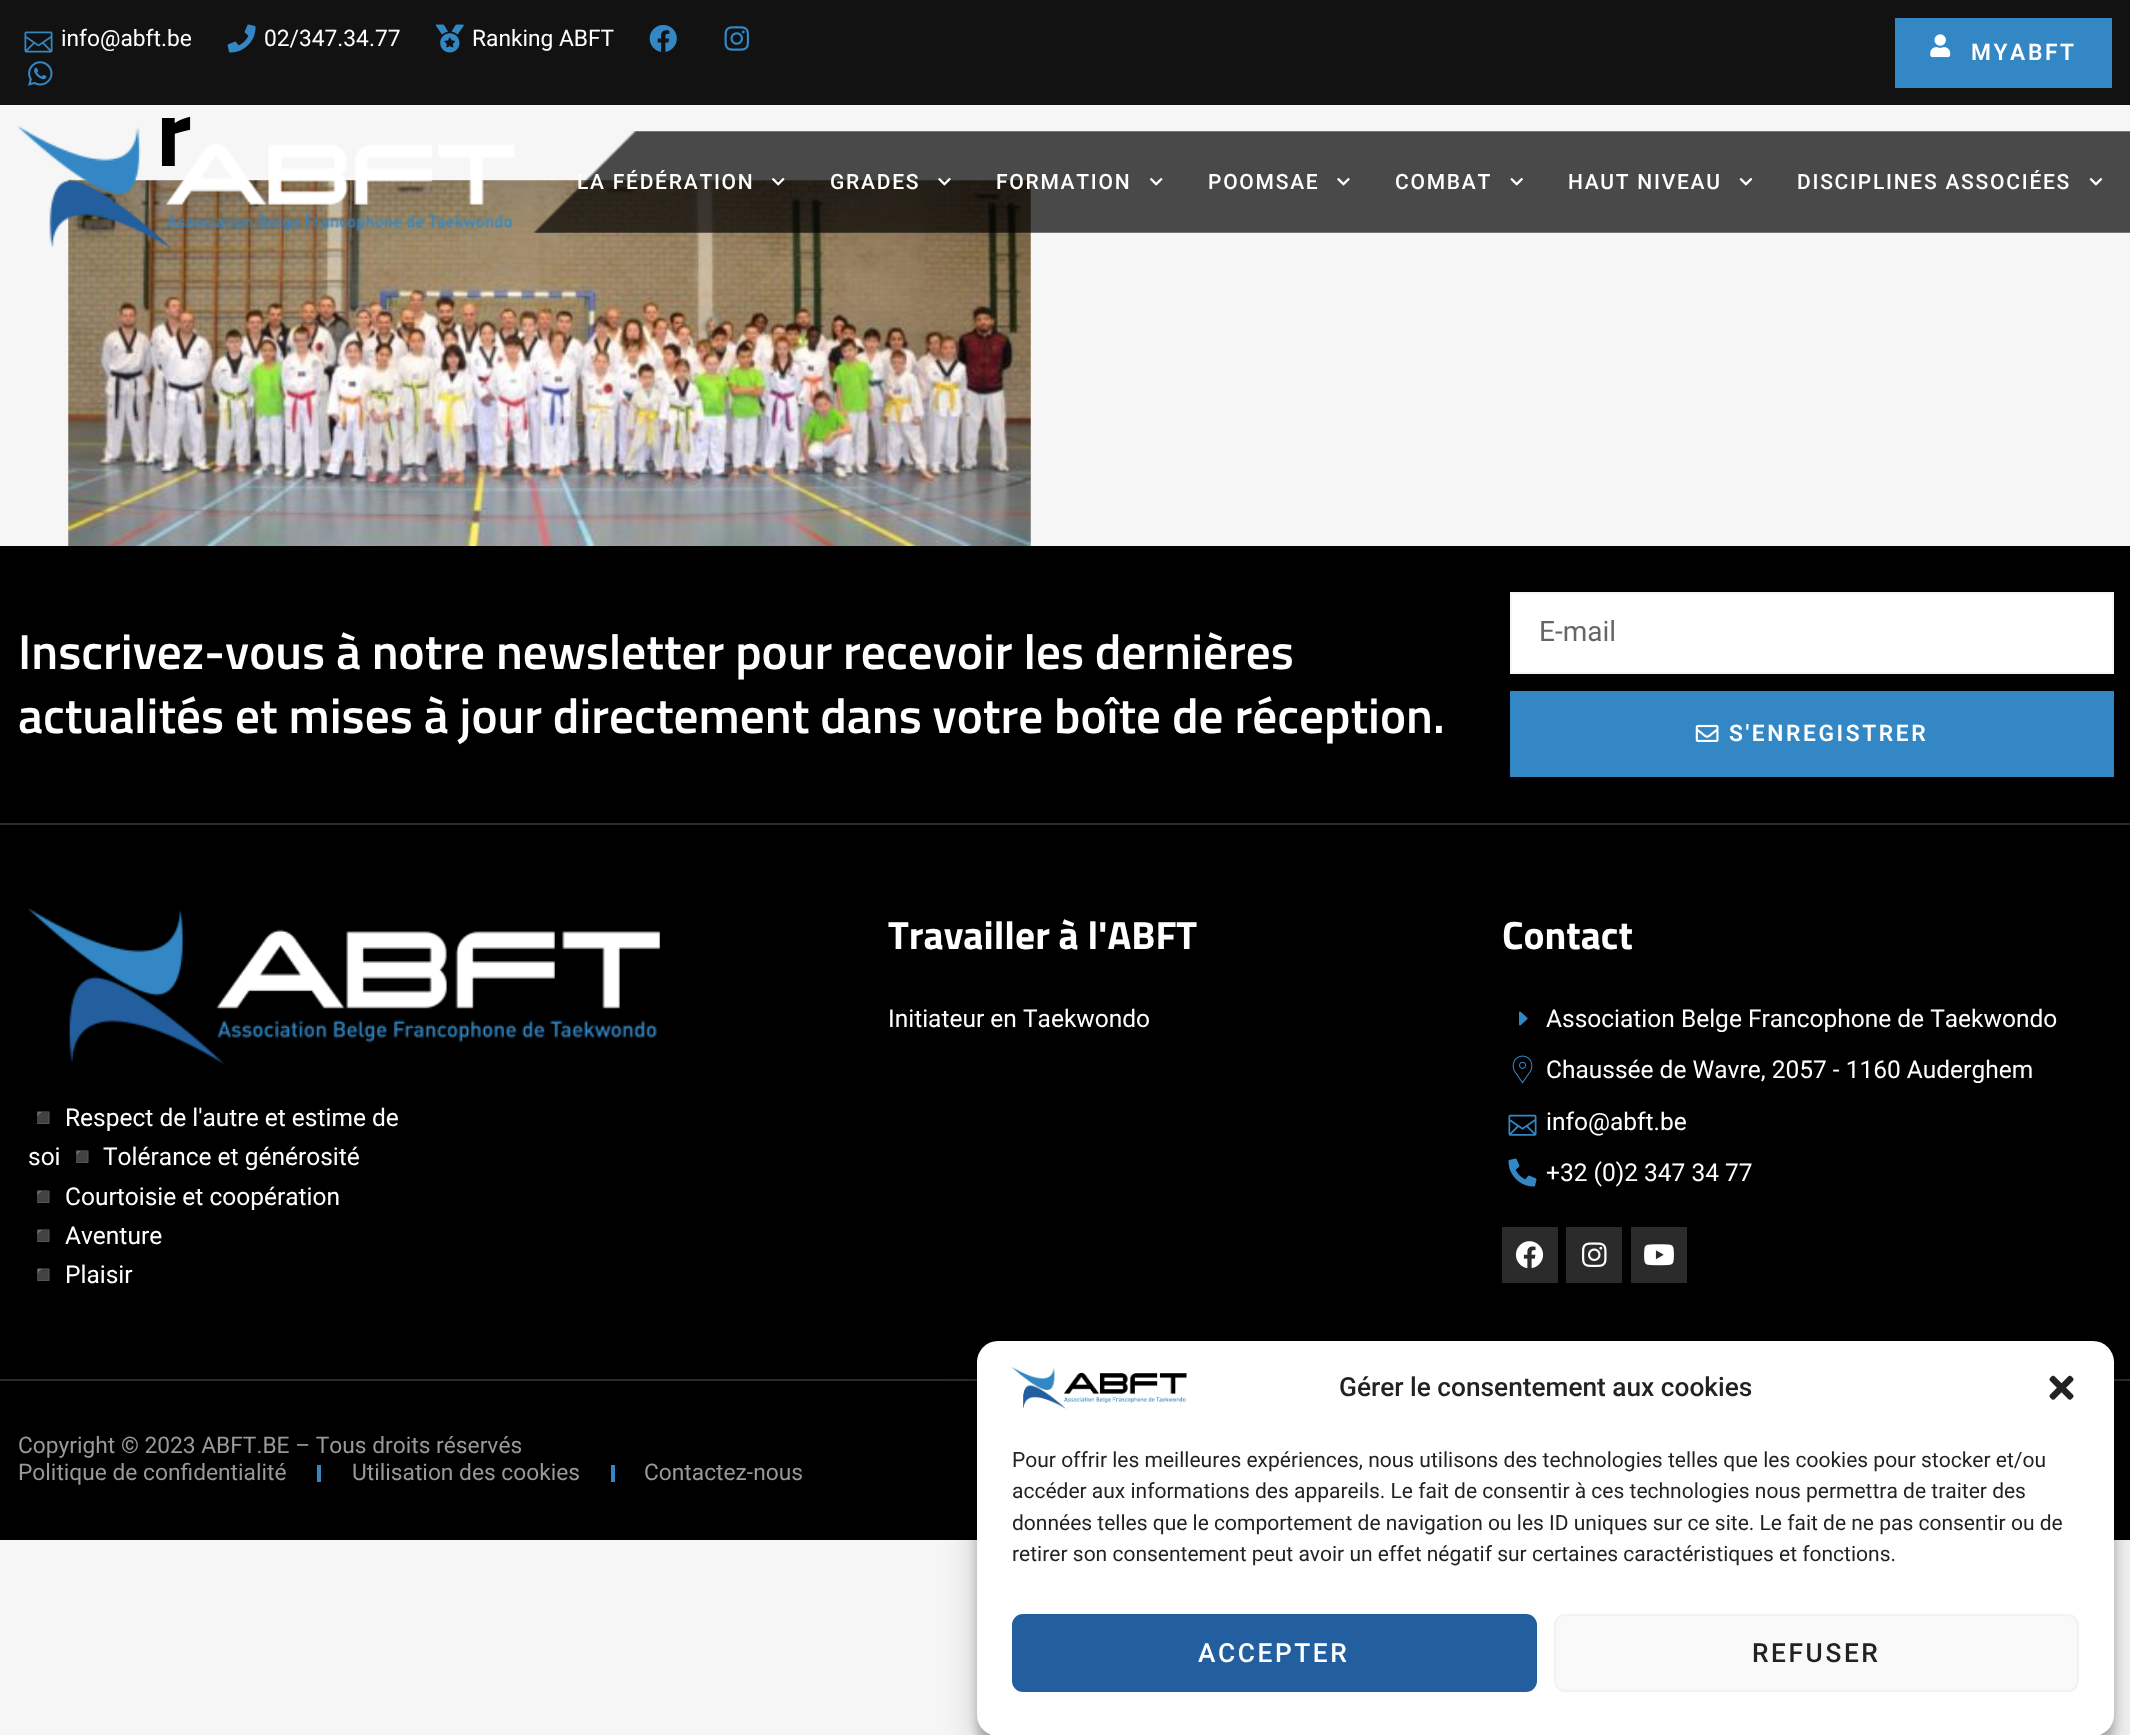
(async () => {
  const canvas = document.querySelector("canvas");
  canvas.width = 2130;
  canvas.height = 1735;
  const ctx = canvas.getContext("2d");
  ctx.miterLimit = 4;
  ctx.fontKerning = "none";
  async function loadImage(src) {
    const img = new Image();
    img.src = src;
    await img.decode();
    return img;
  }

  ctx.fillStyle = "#f6f6f6";
  ctx.fillRect(0, 0, 2130, 1735);
  ctx.fillStyle = "#121212";
  ctx.fillRect(0, 0, 2130, 105);
  ctx.drawImage(await loadImage("img/1.png"), 24, 31, 29, 22);
  ctx.drawImage(await loadImage("img/2.png"), 227, 24, 29, 29);
  ctx.drawImage(await loadImage("img/3.png"), 435, 24, 29, 29);
  ctx.drawImage(await loadImage("img/4.png"), 649, 24, 28, 28);
  ctx.drawImage(await loadImage("img/5.png"), 724, 26, 26, 25);
  ctx.drawImage(await loadImage("img/6.png"), 28, 61, 25, 25);
  ctx.fillStyle = "#3387c4";
  ctx.fillRect(1895, 18, 217, 70);
  ctx.drawImage(await loadImage("img/7.png"), 1930, 34, 21, 24);
  ctx.drawImage(await loadImage("img/16.png"), 68, 180, 963, 366);
  ctx.drawImage(await loadImage("img/9.png"), 533, 131, 1597, 102);
  ctx.drawImage(await loadImage("img/10.png"), 772, 178, 13, 8);
  ctx.drawImage(await loadImage("img/11.png"), 938, 178, 13, 8);
  ctx.drawImage(await loadImage("img/12.png"), 1150, 178, 13, 8);
  ctx.drawImage(await loadImage("img/13.png"), 1337, 178, 13, 8);
  ctx.drawImage(await loadImage("img/14.png"), 1510, 178, 13, 8);
  ctx.drawImage(await loadImage("img/15.png"), 1739, 178, 14, 8);
  ctx.drawImage(await loadImage("img/15.png"), 2089, 178, 14, 8);
  ctx.fillStyle = "#000000";
  ctx.fillRect(0, 546, 2130, 994);
  ctx.fillStyle = "#2b2b2b";
  ctx.fillRect(0, 823, 2130, 2);
  ctx.fillStyle = "#ffffff";
  ctx.beginPath();
  ctx.rect(1511, 593, 602, 80);
  ctx.fill();
  ctx.strokeStyle = "#f6f6f6";
  ctx.lineWidth = 2;
  ctx.stroke();
  ctx.fillStyle = "#3387c4";
  ctx.fillRect(1510, 691, 604, 86);
  ctx.drawImage(await loadImage("img/17.png"), 1695, 724, 24, 18);
  ctx.fillStyle = "#2b2b2b";
  ctx.fillRect(0, 1379, 2130, 2);
  ctx.drawImage(await loadImage("img/18.png"), 28, 908, 632, 156);
  ctx.drawImage(await loadImage("img/19.png"), 1519, 1011, 9, 15);
  ctx.drawImage(await loadImage("img/20.png"), 1512, 1055, 21, 29);
  ctx.drawImage(await loadImage("img/21.png"), 1508, 1114, 29, 22);
  ctx.drawImage(await loadImage("img/22.png"), 1508, 1158, 29, 29);
  ctx.fillRect(1502, 1227, 56, 56);
  ctx.drawImage(await loadImage("img/23.png"), 1515, 1241, 29, 28);
  ctx.fillRect(1566, 1227, 56, 56);
  ctx.drawImage(await loadImage("img/24.png"), 1582, 1242, 25, 25);
  ctx.fillRect(1631, 1227, 56, 56);
  ctx.drawImage(await loadImage("img/25.png"), 1644, 1244, 30, 22);
  ctx.fillStyle = "#3387c4";
  ctx.fillRect(317, 1465, 4, 17);
  ctx.fillRect(611, 1465, 4, 17);
  ctx.fillStyle = "rgba(0, 0, 0, 0.23)";
  ctx.filter = "blur(5px)";
  ctx.beginPath();
  ctx.roundRect(977, 1351, 1137, 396, 21);
  ctx.fill();
  ctx.filter = "none";
  ctx.fillStyle = "rgba(0, 0, 0, 0.19)";
  ctx.filter = "blur(17.5px)";
  ctx.beginPath();
  ctx.roundRect(977, 1358, 1137, 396, 21);
  ctx.fill();
  ctx.filter = "none";
  ctx.fillStyle = "#ffffff";
  ctx.beginPath();
  ctx.roundRect(977, 1341, 1137, 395, 21);
  ctx.fill();
  ctx.drawImage(await loadImage("img/26.png"), 1011, 1367, 176, 42);
  ctx.drawImage(await loadImage("img/27.png"), 2049, 1375, 25, 25);
  ctx.fillStyle = "#235e9e";
  ctx.beginPath();
  ctx.roundRect(1013, 1615, 523, 76, 10);
  ctx.fill();
  ctx.strokeStyle = "#235e9e";
  ctx.stroke();
  ctx.fillStyle = "#f9f9f9";
  ctx.beginPath();
  ctx.roundRect(1555, 1615, 523, 76, 10);
  ctx.fill();
  ctx.strokeStyle = "#f2f2f2";
  ctx.stroke();
  ctx.font = "22.75px Roboto";
  ctx.fillStyle = "#ffffff";
  for (const [text, x, y] of [
    ["info@abft.be", 61, 46],
    ["02/347.34.77", 264, 46],
    ["Ranking ABFT", 472, 46],
  ]) {
    ctx.fillText(text, x, y);
  }
  ctx.letterSpacing = "2.6px";
  ctx.font = "600 22.75px Roboto";
  ctx.fillText("MYABFT", 1971, 60);
  ctx.letterSpacing = "1.75px";
  ctx.font = "500 21px Roboto";
  for (const [text, x, y] of [
    ["LA FÉDÉRATION", 577, 189],
    ["GRADES", 830, 189],
    ["FORMATION", 996, 189],
    ["POOMSAE", 1208, 189],
    ["COMBAT", 1395, 189],
    ["HAUT NIVEAU", 1568, 189],
    ["DISCIPLINES ASSOCIÉES", 1797, 189],
  ]) {
    ctx.fillText(text, x, y);
  }
  ctx.letterSpacing = "-4px";
  ctx.font = "bold 96px Titillium Web";
  ctx.fillStyle = "#000000";
  ctx.fillText("r", 156, 166);
  ctx.drawImage(await loadImage("img/8.png"), 17, 126, 498, 123);
  ctx.letterSpacing = "0px";
  ctx.font = "600 49.25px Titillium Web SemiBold";
  ctx.fillStyle = "#ffffff";
  ctx.fillText("Inscrivez-vous à notre newsletter pour recevoir les dernières", 18, 669);
  ctx.fillText("actualités et mises à jour directement dans votre boîte de réception.", 18, 733);
  ctx.font = "28px Roboto";
  ctx.fillStyle = "#666666";
  ctx.fillText("E-mail", 1539, 641);
  ctx.letterSpacing = "2.6px";
  ctx.font = "600 22.75px Roboto";
  ctx.fillStyle = "#ffffff";
  ctx.fillText("S'ENREGISTRER", 1729, 741);
  ctx.letterSpacing = "0px";
  ctx.font = "24.5px Noto Color Emoji";
  ctx.fillText("◾", 28, 1126);
  ctx.font = "24.5px Roboto";
  ctx.fillText("Respect de l'autre et estime de", 65, 1126);
  ctx.fillText("soi", 28, 1165);
  ctx.font = "24.5px Noto Color Emoji";
  ctx.fillText("◾", 67, 1165);
  ctx.font = "24.5px Roboto";
  ctx.fillText("Tolérance et générosité", 103, 1165);
  ctx.font = "24.5px Noto Color Emoji";
  ctx.fillText("◾", 28, 1205);
  ctx.font = "24.5px Roboto";
  ctx.fillText("Courtoisie et coopération", 65, 1205);
  ctx.font = "24.5px Noto Color Emoji";
  ctx.fillText("◾", 28, 1244);
  ctx.font = "24.5px Roboto";
  ctx.fillText("Aventure", 65, 1244);
  ctx.font = "24.5px Noto Color Emoji";
  ctx.fillText("◾", 28, 1283);
  ctx.font = "24.5px Roboto";
  ctx.fillText("Plaisir", 65, 1283);
  ctx.font = "bold 39.5px Titillium Web";
  ctx.fillText("Travailler à l'ABFT", 888, 949);
  ctx.font = "24.5px Roboto";
  ctx.fillText("Initiateur en Taekwondo", 888, 1027);
  ctx.font = "bold 39.5px Titillium Web";
  ctx.fillText("Contact", 1502, 949);
  ctx.font = "24.5px Roboto";
  for (const [text, x, y] of [
    ["Association Belge Francophone de Taekwondo", 1546, 1027],
    ["Chaussée de Wavre, 2057 - 1160 Auderghem", 1546, 1078],
    ["info@abft.be", 1546, 1130],
    ["+32 (0)2 347 34 77", 1546, 1181],
  ]) {
    ctx.fillText(text, x, y);
  }
  ctx.font = "22.75px Roboto";
  ctx.fillStyle = "#999999";
  for (const [text, x, y] of [
    ["Copyright © 2023 ABFT.BE – Tous droits réservés", 18, 1453],
    ["Politique de confidentialité", 18, 1480],
    ["Utilisation des cookies", 352, 1480],
    ["Contactez-nous", 644, 1480],
  ]) {
    ctx.fillText(text, x, y);
  }
  ctx.font = "500 26.25px Roboto";
  ctx.fillStyle = "#222222";
  ctx.fillText("Gérer le consentement aux cookies", 1339, 1396);
  ctx.font = "21px Roboto";
  for (const [text, x, y] of [
    ["Pour offrir les meilleures expériences, nous utilisons des technologies telles que les cookies pour stocker et/ou", 1012, 1467],
    ["accéder aux informations des appareils. Le fait de consentir à ces technologies nous permettra de traiter des", 1012, 1498],
    ["données telles que le comportement de navigation ou les ID uniques sur ce site. Le fait de ne pas consentir ou de", 1012, 1530],
    ["retirer son consentement peut avoir un effet négatif sur certaines caractéristiques et fonctions.", 1012, 1561],
  ]) {
    ctx.fillText(text, x, y);
  }
  ctx.letterSpacing = "2.6px";
  ctx.font = "500 26.25px Roboto";
  ctx.fillStyle = "#ffffff";
  ctx.fillText("ACCEPTER", 1198, 1662);
  ctx.fillStyle = "#222222";
  ctx.fillText("REFUSER", 1752, 1662);
})();
